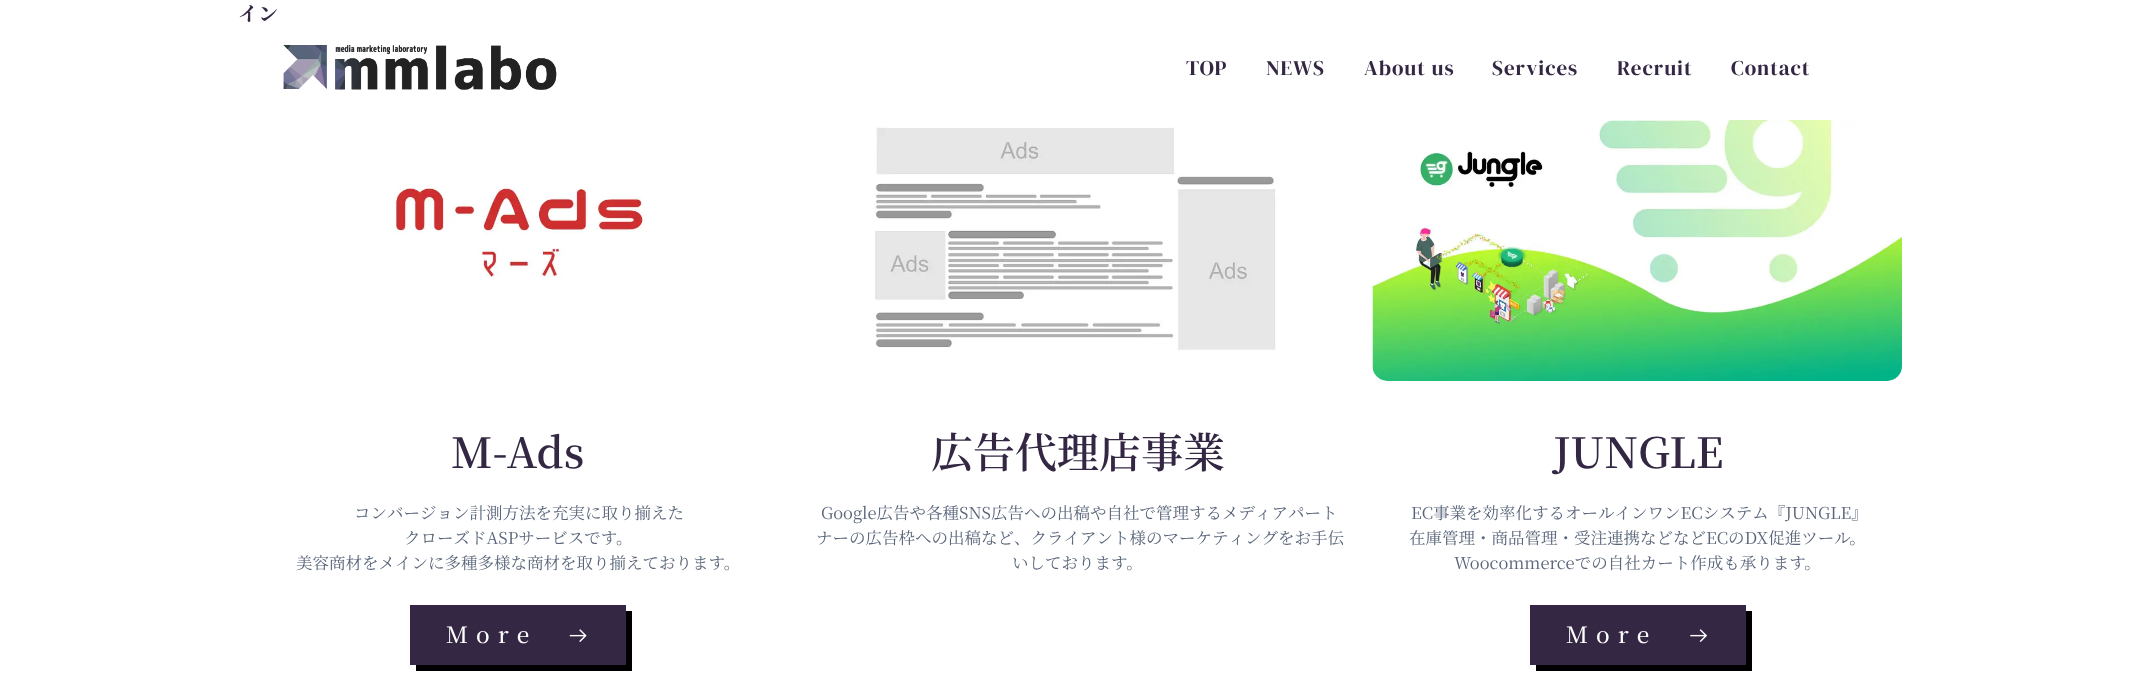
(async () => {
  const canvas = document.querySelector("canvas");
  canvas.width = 2155;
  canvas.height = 685;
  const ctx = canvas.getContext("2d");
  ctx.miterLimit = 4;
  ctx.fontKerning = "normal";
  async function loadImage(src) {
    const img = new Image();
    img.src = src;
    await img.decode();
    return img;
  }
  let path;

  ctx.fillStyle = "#ffffff";
  ctx.fillRect(0, 0, 2155, 685);
  ctx.drawImage(await loadImage("img/1.png"), 253, 116, 394, 263);
  ctx.fillStyle = "#000000";
  path = new Path2D("M416 664V671H632V611H626V664Z");
  ctx.fill(path);
  ctx.fillStyle = "#332744";
  ctx.fillRect(410, 605, 216, 60);
  ctx.drawImage(await loadImage("img/2.png"), 569, 629, 18, 13);
  ctx.drawImage(await loadImage("img/3.png"), 867, 120, 422, 231);
  ctx.drawImage(await loadImage("img/4.png"), 1372, 106, 530, 275);
  ctx.fillStyle = "#000000";
  path = new Path2D("M1536 664V671H1752V611H1746V664Z");
  ctx.fill(path);
  ctx.fillStyle = "#332744";
  ctx.fillRect(1530, 605, 216, 60);
  ctx.drawImage(await loadImage("img/5.png"), 1690, 629, 17, 13);
  ctx.font = "bold 20px Noto Serif JP";
  ctx.fillText("イン", 238, 21);
  ctx.font = "600 42px Noto Serif JP";
  ctx.fillText("M-Ads", 451, 468);
  ctx.font = "16.5px Noto Serif JP";
  ctx.fillStyle = "#586479";
  for (const [text, x, y] of [
    ["コンバージョン計測方法を充実に取り揃えた", 354, 519],
    ["クローズドASPサービスです。", 404, 544],
    ["美容商材をメインに多種多様な商材を取り揃えております。", 296, 569],
  ]) {
    ctx.fillText(text, x, y);
  }
  ctx.letterSpacing = "8.5px";
  ctx.font = "500 22.5px Noto Serif JP";
  ctx.fillStyle = "#ffffff";
  ctx.fillText("More", 446, 643);
  ctx.letterSpacing = "0px";
  ctx.font = "600 42px Noto Serif JP";
  ctx.fillStyle = "#332744";
  ctx.fillText("広告代理店事業", 931, 468);
  ctx.font = "16.5px Noto Serif JP";
  ctx.fillStyle = "#586479";
  for (const [text, x, y] of [
    ["Google広告や各種SNS広告への出稿や自社で管理するメディアパート", 821, 519],
    ["ナーの広告枠への出稿など、クライアント様のマーケティングをお手伝", 816, 544],
    ["いしております。", 1012, 569],
  ]) {
    ctx.fillText(text, x, y);
  }
  ctx.font = "600 42px Noto Serif JP";
  ctx.fillStyle = "#332744";
  ctx.fillText("JUNGLE", 1553, 468);
  ctx.font = "16.5px Noto Serif JP";
  ctx.fillStyle = "#586479";
  for (const [text, x, y] of [
    ["EC事業を効率化するオールインワンECシステム『JUNGLE』", 1411, 519],
    ["在庫管理・商品管理・受注連携などなどECのDX促進ツール。", 1409, 544],
    ["Woocommerceでの自社カート作成も承ります。", 1454, 569],
  ]) {
    ctx.fillText(text, x, y);
  }
  ctx.letterSpacing = "8.5px";
  ctx.font = "500 22.5px Noto Serif JP";
  ctx.fillStyle = "#ffffff";
  ctx.fillText("More", 1566, 643);
  ctx.beginPath();
  ctx.roundRect(239, 15, 1680, 105, 52.5);
  ctx.fill();
  ctx.drawImage(await loadImage("img/6.png"), 283, 45, 274, 45);
  ctx.letterSpacing = "1px";
  ctx.font = "21px DM Serif Display";
  ctx.fillStyle = "#332744";
  for (const [text, x, y] of [
    ["TOP", 1186, 75],
    ["NEWS", 1266, 75],
    ["About us", 1364, 75],
    ["Services", 1492, 75],
    ["Recruit", 1617, 75],
    ["Contact", 1731, 75],
  ]) {
    ctx.fillText(text, x, y);
  }
})();
